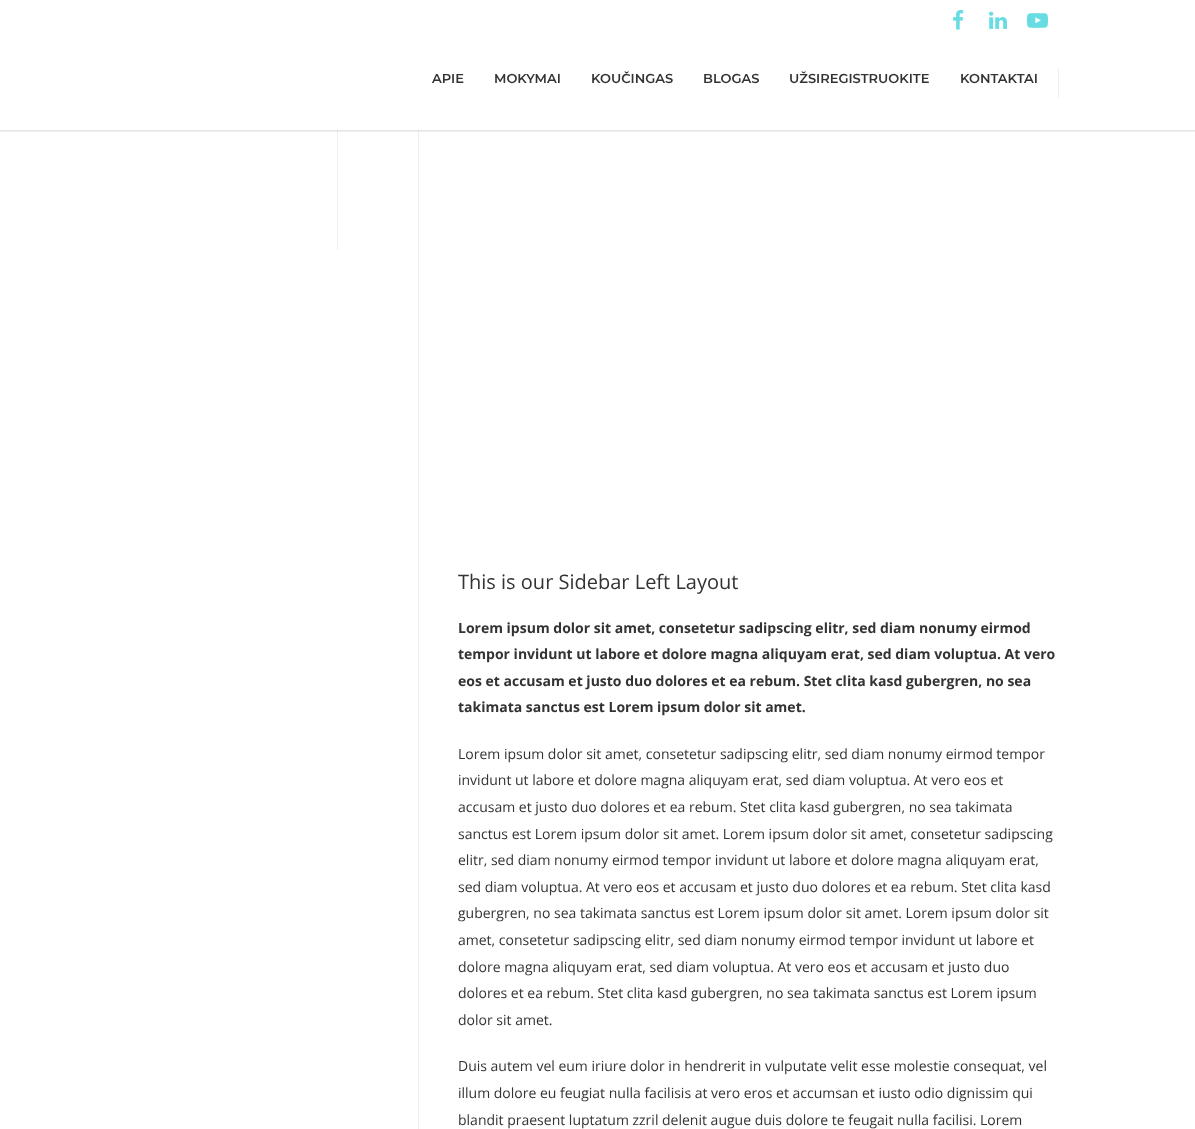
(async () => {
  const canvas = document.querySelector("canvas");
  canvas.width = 1195;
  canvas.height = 1129;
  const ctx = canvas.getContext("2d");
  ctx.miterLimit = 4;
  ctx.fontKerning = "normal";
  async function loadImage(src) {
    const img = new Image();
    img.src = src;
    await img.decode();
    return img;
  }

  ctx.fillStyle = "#ffffff";
  ctx.fillRect(0, 0, 1195, 1129);
  ctx.fillStyle = "#efefef";
  ctx.fillRect(337, 130, 1, 120);
  ctx.fillRect(418, 130, 1, 999);
  ctx.save();
  ctx.beginPath();
  ctx.rect(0, 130, 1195, 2);
  ctx.clip();
  ctx.fillStyle = "rgba(0, 0, 0, 0.16)";
  ctx.filter = "blur(1px)";
  ctx.beginPath();
  ctx.rect(-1, 39, 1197, 92);
  ctx.fill();
  ctx.filter = "none";
  ctx.restore();
  ctx.fillStyle = "#ffffff";
  ctx.fillRect(0, 38, 1195, 2);
  ctx.drawImage(await loadImage("img/1.png"), 953, 10, 11, 20);
  ctx.drawImage(await loadImage("img/2.png"), 989, 11, 18, 18);
  ctx.drawImage(await loadImage("img/3.png"), 1027, 13, 21, 15);
  ctx.fillStyle = "#efefef";
  ctx.fillRect(1058, 68, 1, 30);
  ctx.font = "600 13px Montserrat";
  ctx.fillStyle = "#333333";
  for (const [text, x, y] of [
    ["APIE", 432, 83],
    ["MOKYMAI", 494, 83],
    ["KOUČINGAS", 591, 83],
    ["BLOGAS", 703, 83],
    ["UŽSIREGISTRUOKITE", 789, 83],
    ["KONTAKTAI", 960, 83],
  ]) {
    ctx.fillText(text, x, y);
  }
  ctx.font = "20px Open Sans";
  ctx.fillText("This is our Sidebar Left Layout", 458, 589);
  ctx.font = "bold 14px Open Sans";
  for (const [text, x, y] of [
    ["Lorem ipsum dolor sit amet, consetetur sadipscing elitr, sed diam nonumy eirmod", 458, 633],
    ["tempor invidunt ut labore et dolore magna aliquyam erat, sed diam voluptua. At vero", 458, 659],
    ["eos et accusam et justo duo dolores et ea rebum. Stet clita kasd gubergren, no sea", 458, 686],
    ["takimata sanctus est Lorem ipsum dolor sit amet.", 458, 712],
  ]) {
    ctx.fillText(text, x, y);
  }
  ctx.font = "14px Open Sans";
  for (const [text, x, y] of [
    ["Lorem ipsum dolor sit amet, consetetur sadipscing elitr, sed diam nonumy eirmod tempor", 458, 759],
    ["invidunt ut labore et dolore magna aliquyam erat, sed diam voluptua. At vero eos et", 458, 785],
    ["accusam et justo duo dolores et ea rebum. Stet clita kasd gubergren, no sea takimata", 458, 812],
    ["sanctus est Lorem ipsum dolor sit amet. Lorem ipsum dolor sit amet, consetetur sadipscing", 458, 839],
    ["elitr, sed diam nonumy eirmod tempor invidunt ut labore et dolore magna aliquyam erat,", 458, 865],
    ["sed diam voluptua. At vero eos et accusam et justo duo dolores et ea rebum. Stet clita kasd", 458, 892],
    ["gubergren, no sea takimata sanctus est Lorem ipsum dolor sit amet. Lorem ipsum dolor sit", 458, 918],
    ["amet, consetetur sadipscing elitr, sed diam nonumy eirmod tempor invidunt ut labore et", 458, 945],
    ["dolore magna aliquyam erat, sed diam voluptua. At vero eos et accusam et justo duo", 458, 972],
    ["dolores et ea rebum. Stet clita kasd gubergren, no sea takimata sanctus est Lorem ipsum", 458, 998],
    ["dolor sit amet.", 458, 1025],
    ["Duis autem vel eum iriure dolor in hendrerit in vulputate velit esse molestie consequat, vel", 458, 1071],
    ["illum dolore eu feugiat nulla facilisis at vero eros et accumsan et iusto odio dignissim qui", 458, 1098],
    ["blandit praesent luptatum zzril delenit augue duis dolore te feugait nulla facilisi. Lorem", 458, 1125],
  ]) {
    ctx.fillText(text, x, y);
  }
})();
